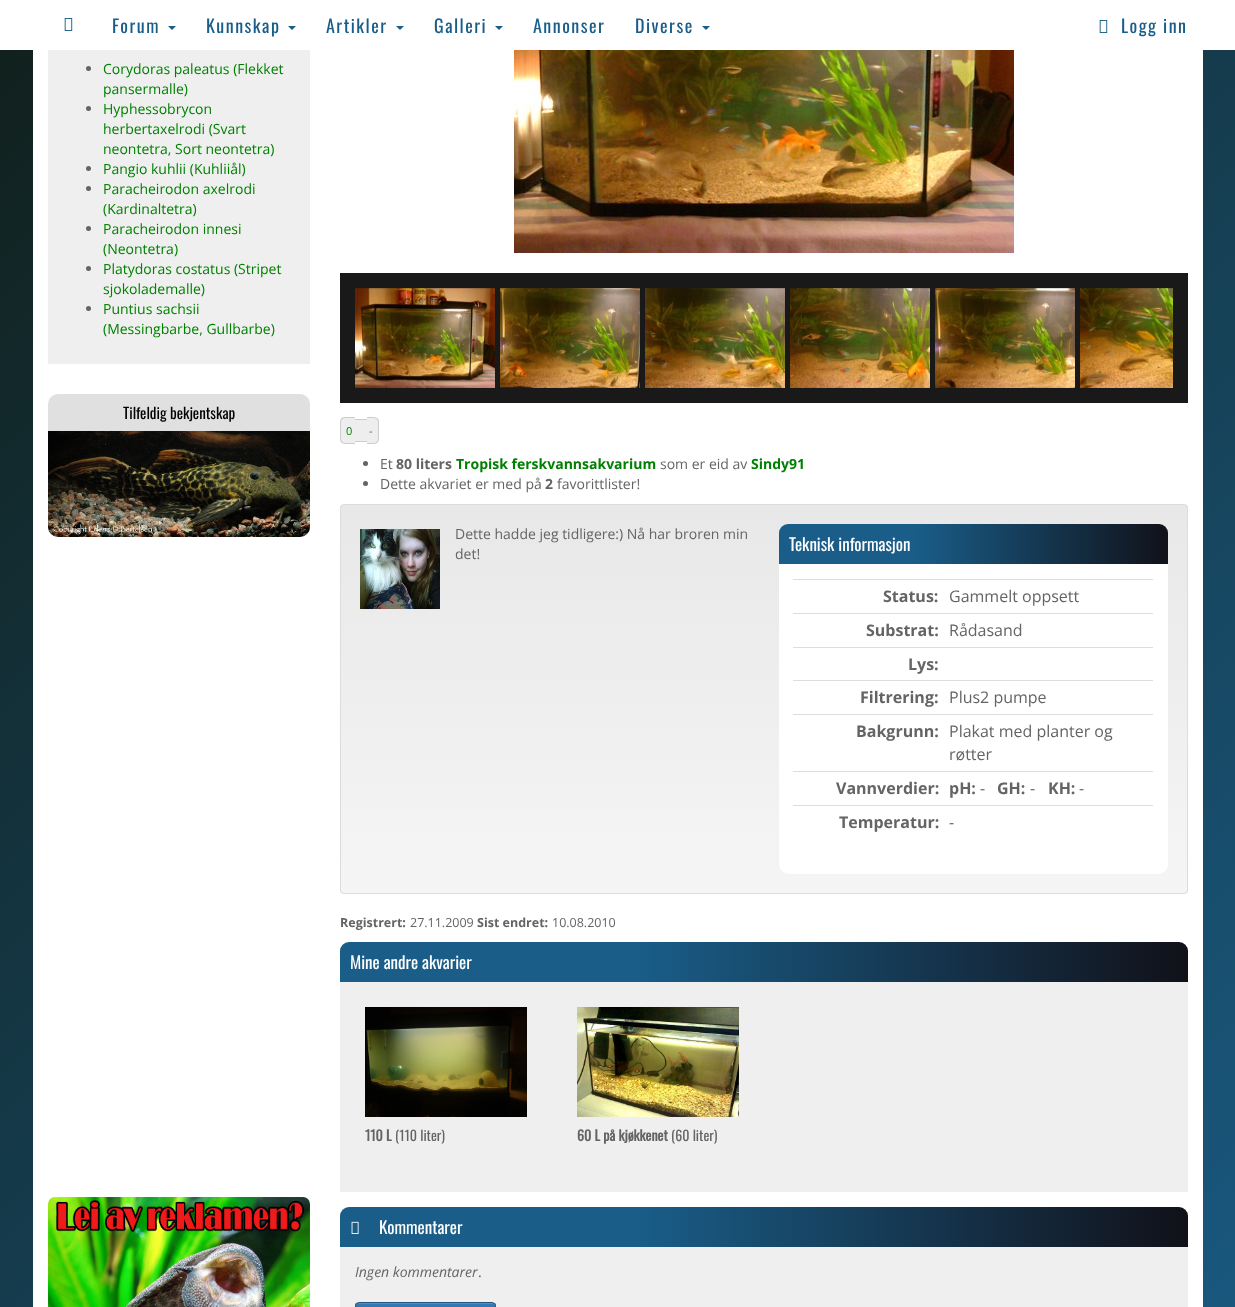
(async () => {
  const canvas = document.querySelector("canvas");
  canvas.width = 1235;
  canvas.height = 1307;
  const ctx = canvas.getContext("2d");
  ctx.miterLimit = 4;
  ctx.fontKerning = "normal";
  async function loadImage(src) {
    const img = new Image();
    img.src = src;
    await img.decode();
    return img;
  }
  let gradient, path;

  ctx.fillStyle = "#ffffff";
  ctx.fillRect(0, 0, 1235, 1307);
  gradient = ctx.createLinearGradient(-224, -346, 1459, 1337);
  gradient.addColorStop(0, "#0f1305");
  gradient.addColorStop(1, "#1a5d88");
  ctx.fillStyle = gradient;
  ctx.fillRect(0, 50, 1235, 1257);
  ctx.drawImage(await loadImage("img/1.png"), 64, 18, 9, 13);
  ctx.fillStyle = "#195d88";
  path = new Path2D("M168 26H176L172 30Z");
  ctx.fill(path);
  path = new Path2D("M288 26H296L292 30Z");
  ctx.fill(path);
  path = new Path2D("M396 26H404L400 30Z");
  ctx.fill(path);
  path = new Path2D("M495 26H503L499 30Z");
  ctx.fill(path);
  path = new Path2D("M702 26H710L706 30Z");
  ctx.fill(path);
  ctx.drawImage(await loadImage("img/1.png"), 1099, 20, 9, 13);
  ctx.fillStyle = "#ffffff";
  ctx.fillRect(33, 50, 1170, 1257);
  ctx.fillStyle = "#efefef";
  ctx.fillRect(48, 50, 262, 314);
  ctx.fillStyle = "#646464";
  ctx.beginPath();
  ctx.arc(88.5, 68.5, 2.5, 0, Math.PI * 2);
  ctx.fill();
  ctx.beginPath();
  ctx.arc(88.5, 108.5, 2.5, 0, Math.PI * 2);
  ctx.fill();
  ctx.beginPath();
  ctx.arc(88.5, 168.5, 2.5, 0, Math.PI * 2);
  ctx.fill();
  ctx.beginPath();
  ctx.arc(88.5, 188.5, 2.5, 0, Math.PI * 2);
  ctx.fill();
  ctx.beginPath();
  ctx.arc(88.5, 228.5, 2.5, 0, Math.PI * 2);
  ctx.fill();
  ctx.beginPath();
  ctx.arc(88.5, 268.5, 2.5, 0, Math.PI * 2);
  ctx.fill();
  ctx.beginPath();
  ctx.arc(88.5, 308.5, 2.5, 0, Math.PI * 2);
  ctx.fill();
  ctx.fillStyle = "#e0e0e0";
  ctx.beginPath();
  ctx.roundRect(48, 394, 262, 37, [10, 10, 0, 0]);
  ctx.fill();
  ctx.fillStyle = "#cccccc";
  ctx.beginPath();
  ctx.roundRect(48, 431, 262, 106, [0, 0, 10, 10]);
  ctx.fill();
  ctx.drawImage(await loadImage("img/2.png"), 48, 431, 262, 106);
  ctx.drawImage(await loadImage("img/3.png"), 48, 1197, 262, 110);
  ctx.drawImage(await loadImage("img/4.png"), 514, 50, 500, 203);
  ctx.fillStyle = "#191919";
  ctx.fillRect(340, 273, 848, 130);
  ctx.drawImage(await loadImage("img/5.png"), 355, 288, 140, 100);
  ctx.drawImage(await loadImage("img/6.png"), 500, 288, 140, 100);
  ctx.drawImage(await loadImage("img/7.png"), 645, 288, 140, 100);
  ctx.drawImage(await loadImage("img/8.png"), 790, 288, 140, 100);
  ctx.drawImage(await loadImage("img/9.png"), 935, 288, 140, 100);
  ctx.drawImage(await loadImage("img/10.png"), 1080, 288, 93, 100);
  ctx.fillStyle = "#eeeeee";
  ctx.beginPath();
  ctx.roundRect(340, 417, 12, 27, [5, 0, 0, 5]);
  ctx.fill();
  ctx.fillStyle = "#cccccc";
  path = new Path2D("M345 417H352V444C339 444 340 444 340 430.5V425C340 421.5 340 417 345 417ZM345 418H352V443C340 443 341 443.5 341 430.5V425C341 422 341 418 345 418Z");
  ctx.fill(path, "evenodd");
  for (const [x, y, w, h, color] of [
    [352, 417, 3, 27, "#eeeeee"],
    [352, 417, 3, 1, "#cccccc"],
    [352, 443, 3, 1, "#cccccc"],
    [355, 420, 12, 21, "#eeeeee"],
    [355, 419, 12, 1, "#cccccc"],
    [355, 441, 12, 1, "#cccccc"],
  ]) {
    ctx.fillStyle = color;
    ctx.fillRect(x, y, w, h);
  }
  ctx.fillStyle = "#eeeeee";
  ctx.beginPath();
  ctx.roundRect(367, 417, 12, 27, [0, 5, 5, 0]);
  ctx.fill();
  ctx.fillStyle = "#cccccc";
  path = new Path2D("M367 417C380 417 379 417 379 430.5C379 444 380 444 367 444ZM367 418C379 418 378 417.5 378 430.5C378 443.5 379 443 367 443Z");
  ctx.fill(path, "evenodd");
  ctx.fillStyle = "#646464";
  ctx.beginPath();
  ctx.arc(365.5, 463.5, 2.5, 0, Math.PI * 2);
  ctx.fill();
  ctx.beginPath();
  ctx.arc(365.5, 483.5, 2.5, 0, Math.PI * 2);
  ctx.fill();
  ctx.save();
  ctx.beginPath();
  ctx.roundRect(340, 504, 848, 390, 4);
  ctx.clip();
  gradient = ctx.createLinearGradient(764, 505, 764, 893);
  gradient.addColorStop(0, "#e8e8e8");
  gradient.addColorStop(1, "#f5f5f5");
  ctx.fillStyle = gradient;
  ctx.fillRect(340, 505, 848, 388);
  ctx.restore();
  ctx.beginPath();
  ctx.roundRect(340.5, 504.5, 847, 389, 3.5);
  ctx.strokeStyle = "#dcdcdc";
  ctx.stroke();
  ctx.drawImage(await loadImage("img/11.png"), 360, 529, 80, 80);
  gradient = ctx.createLinearGradient(779, 544, 1168, 544);
  gradient.addColorStop(0.35, "#195d88");
  gradient.addColorStop(1, "#111119");
  ctx.fillStyle = gradient;
  ctx.beginPath();
  ctx.roundRect(779, 524, 389, 40, [9, 9, 0, 0]);
  ctx.fill();
  ctx.fillStyle = "#ffffff";
  ctx.beginPath();
  ctx.roundRect(779, 564, 389, 310, [0, 0, 10, 10]);
  ctx.fill();
  for (const [x, y, w, h, color] of [
    [793, 579, 360, 1, "#dddddd"],
    [793, 613, 360, 1, "#dddddd"],
    [793, 647, 360, 1, "#dddddd"],
    [793, 680, 360, 1, "#dddddd"],
    [793, 714, 360, 1, "#dddddd"],
    [793, 771, 360, 1, "#dddddd"],
    [793, 805, 360, 1, "#dddddd"],
  ]) {
    ctx.fillStyle = color;
    ctx.fillRect(x, y, w, h);
  }
  gradient = ctx.createLinearGradient(340, 962, 1188, 962);
  gradient.addColorStop(0.35, "#195d88");
  gradient.addColorStop(1, "#111119");
  ctx.fillStyle = gradient;
  ctx.beginPath();
  ctx.roundRect(340, 942, 848, 40, [9, 9, 0, 0]);
  ctx.fill();
  ctx.fillStyle = "#efefef";
  ctx.fillRect(340, 982, 848, 210);
  ctx.drawImage(await loadImage("img/12.png"), 365, 1007, 162, 110);
  ctx.drawImage(await loadImage("img/13.png"), 577, 1007, 162, 110);
  gradient = ctx.createLinearGradient(340, 1227, 1188, 1227);
  gradient.addColorStop(0.35, "#195d88");
  gradient.addColorStop(1, "#111119");
  ctx.fillStyle = gradient;
  ctx.beginPath();
  ctx.roundRect(340, 1207, 848, 40, [9, 9, 0, 0]);
  ctx.fill();
  ctx.drawImage(await loadImage("img/14.png"), 351, 1221, 8, 13);
  ctx.fillStyle = "#efefef";
  ctx.fillRect(340, 1247, 848, 60);
  ctx.save();
  ctx.beginPath();
  ctx.roundRect(355, 1302, 141, 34, 4);
  ctx.clip();
  gradient = ctx.createLinearGradient(426, 1303, 426, 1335);
  gradient.addColorStop(0, "#337ab7");
  gradient.addColorStop(1, "#265a88");
  ctx.fillStyle = gradient;
  ctx.fillRect(355, 1303, 141, 4);
  ctx.restore();
  ctx.fillStyle = "#528ec1";
  path = new Path2D("M359 1304H492C494 1304 495 1305 495 1307C495 1305 494 1303 492 1303H359C357 1303 356 1305 356 1307C356 1305 357 1304 359 1304Z");
  ctx.fill(path);
  ctx.beginPath();
  ctx.roundRect(355.5, 1302.5, 140, 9, 3.5);
  ctx.strokeStyle = "#245580";
  ctx.stroke();
  ctx.letterSpacing = "1.5px";
  ctx.font = "18px Oswald";
  ctx.fillStyle = "#195d88";
  for (const [text, x, y] of [
    ["Forum", 112, 33],
    ["Kunnskap", 206, 33],
    ["Artikler", 326, 33],
    ["Galleri", 434, 33],
    ["Annonser", 533, 33],
    ["Diverse", 635, 33],
    ["Logg inn", 1121, 33],
  ]) {
    ctx.fillText(text, x, y);
  }
  ctx.letterSpacing = "0px";
  ctx.font = "14px Open Sans";
  ctx.fillStyle = "#008000";
  for (const [text, x, y] of [
    ["Corydoras paleatus (Flekket", 103, 74],
    ["pansermalle)", 103, 94],
    ["Hyphessobrycon", 103, 114],
    ["herbertaxelrodi (Svart", 103, 134],
    ["neontetra, Sort neontetra)", 103, 154],
    ["Pangio kuhlii (Kuhliiål)", 103, 174],
    ["Paracheirodon axelrodi", 103, 194],
    ["(Kardinaltetra)", 103, 214],
    ["Paracheirodon innesi", 103, 234],
    ["(Neontetra)", 103, 254],
    ["Platydoras costatus (Stripet", 103, 274],
    ["sjokolademalle)", 103, 294],
    ["Puntius sachsii", 103, 314],
    ["(Messingbarbe, Gullbarbe)", 103, 334],
  ]) {
    ctx.fillText(text, x, y);
  }
  ctx.font = "15px Oswald";
  ctx.fillStyle = "#000000";
  ctx.fillText("Tilfeldig bekjentskap", 123, 419);
  ctx.font = "11px Open Sans";
  ctx.fillStyle = "#008000";
  ctx.fillText("0", 346, 435);
  ctx.fillStyle = "#646464";
  ctx.fillText("-", 369, 435);
  ctx.font = "14px Open Sans";
  ctx.fillText("Et", 380, 469);
  ctx.font = "bold 14px Open Sans";
  ctx.fillText("80 liters", 396, 469);
  ctx.fillStyle = "#008000";
  ctx.fillText("Tropisk ferskvannsakvarium", 456, 469);
  ctx.font = "14px Open Sans";
  ctx.fillStyle = "#646464";
  ctx.fillText("som er eid av", 660, 469);
  ctx.font = "bold 14px Open Sans";
  ctx.fillStyle = "#008000";
  ctx.fillText("Sindy91", 751, 469);
  ctx.font = "14px Open Sans";
  ctx.fillStyle = "#646464";
  ctx.fillText("Dette akvariet er med på", 380, 489);
  ctx.font = "bold 14px Open Sans";
  ctx.fillText("2", 545, 489);
  ctx.font = "14px Open Sans";
  for (const [text, x, y] of [
    ["favorittlister!", 557, 489],
    ["Dette hadde jeg tidligere:) Nå har broren min", 455, 539],
    ["det!", 455, 559],
  ]) {
    ctx.fillText(text, x, y);
  }
  ctx.font = "17px Oswald";
  ctx.fillStyle = "#ffffff";
  ctx.fillText("Teknisk informasjon", 789, 551);
  ctx.font = "bold 16px Open Sans";
  ctx.fillStyle = "#646464";
  ctx.fillText("Status:", 883, 602);
  ctx.font = "16px Open Sans";
  ctx.fillText("Gammelt oppsett", 949, 602);
  ctx.font = "bold 16px Open Sans";
  ctx.fillText("Substrat:", 866, 636);
  ctx.font = "16px Open Sans";
  ctx.fillText("Rådasand", 949, 636);
  ctx.font = "bold 16px Open Sans";
  ctx.fillText("Lys:", 908, 670);
  ctx.fillText("Filtrering:", 860, 703);
  ctx.font = "16px Open Sans";
  ctx.fillText("Plus2 pumpe", 949, 703);
  ctx.font = "bold 16px Open Sans";
  ctx.fillText("Bakgrunn:", 856, 737);
  ctx.font = "16px Open Sans";
  ctx.fillText("Plakat med planter og", 949, 737);
  ctx.fillText("røtter", 949, 760);
  ctx.font = "bold 16px Open Sans";
  ctx.fillText("Vannverdier:", 836, 794);
  ctx.fillText("pH:", 949, 794);
  ctx.font = "16px Open Sans";
  ctx.fillText("-", 980, 794);
  ctx.font = "bold 16px Open Sans";
  ctx.fillText("GH:", 997, 794);
  ctx.font = "16px Open Sans";
  ctx.fillText("-", 1030, 794);
  ctx.font = "bold 16px Open Sans";
  ctx.fillText("KH:", 1048, 794);
  ctx.font = "16px Open Sans";
  ctx.fillText("-", 1079, 794);
  ctx.font = "bold 16px Open Sans";
  ctx.fillText("Temperatur:", 839, 828);
  ctx.font = "16px Open Sans";
  ctx.fillText("-", 949, 828);
  ctx.font = "bold 12.5px Open Sans";
  ctx.fillText("Registrert:", 340, 927);
  ctx.font = "12.5px Open Sans";
  ctx.fillText("27.11.2009", 410, 927);
  ctx.font = "bold 12.5px Open Sans";
  ctx.fillText("Sist endret:", 477, 927);
  ctx.font = "12.5px Open Sans";
  ctx.fillText("10.08.2010", 552, 927);
  ctx.font = "17px Oswald";
  ctx.fillStyle = "#ffffff";
  ctx.fillText("Mine andre akvarier", 350, 969);
  ctx.font = "bold 14px Oswald";
  ctx.fillStyle = "#646464";
  ctx.fillText("110 L", 365, 1141);
  ctx.font = "14px Oswald";
  ctx.fillText("(110 liter)", 395, 1141);
  ctx.font = "bold 14px Oswald";
  ctx.fillText("60 L på kjøkkenet", 577, 1141);
  ctx.font = "14px Oswald";
  ctx.fillText("(60 liter)", 671, 1141);
  ctx.font = "17px Oswald";
  ctx.fillStyle = "#ffffff";
  ctx.fillText("Kommentarer", 379, 1234);
  ctx.font = "italic 14px Open Sans";
  ctx.fillStyle = "#646464";
  ctx.fillText("Ingen kommentarer", 355, 1277);
  ctx.font = "14px Open Sans";
  ctx.fillText(".", 478, 1277);
})();
